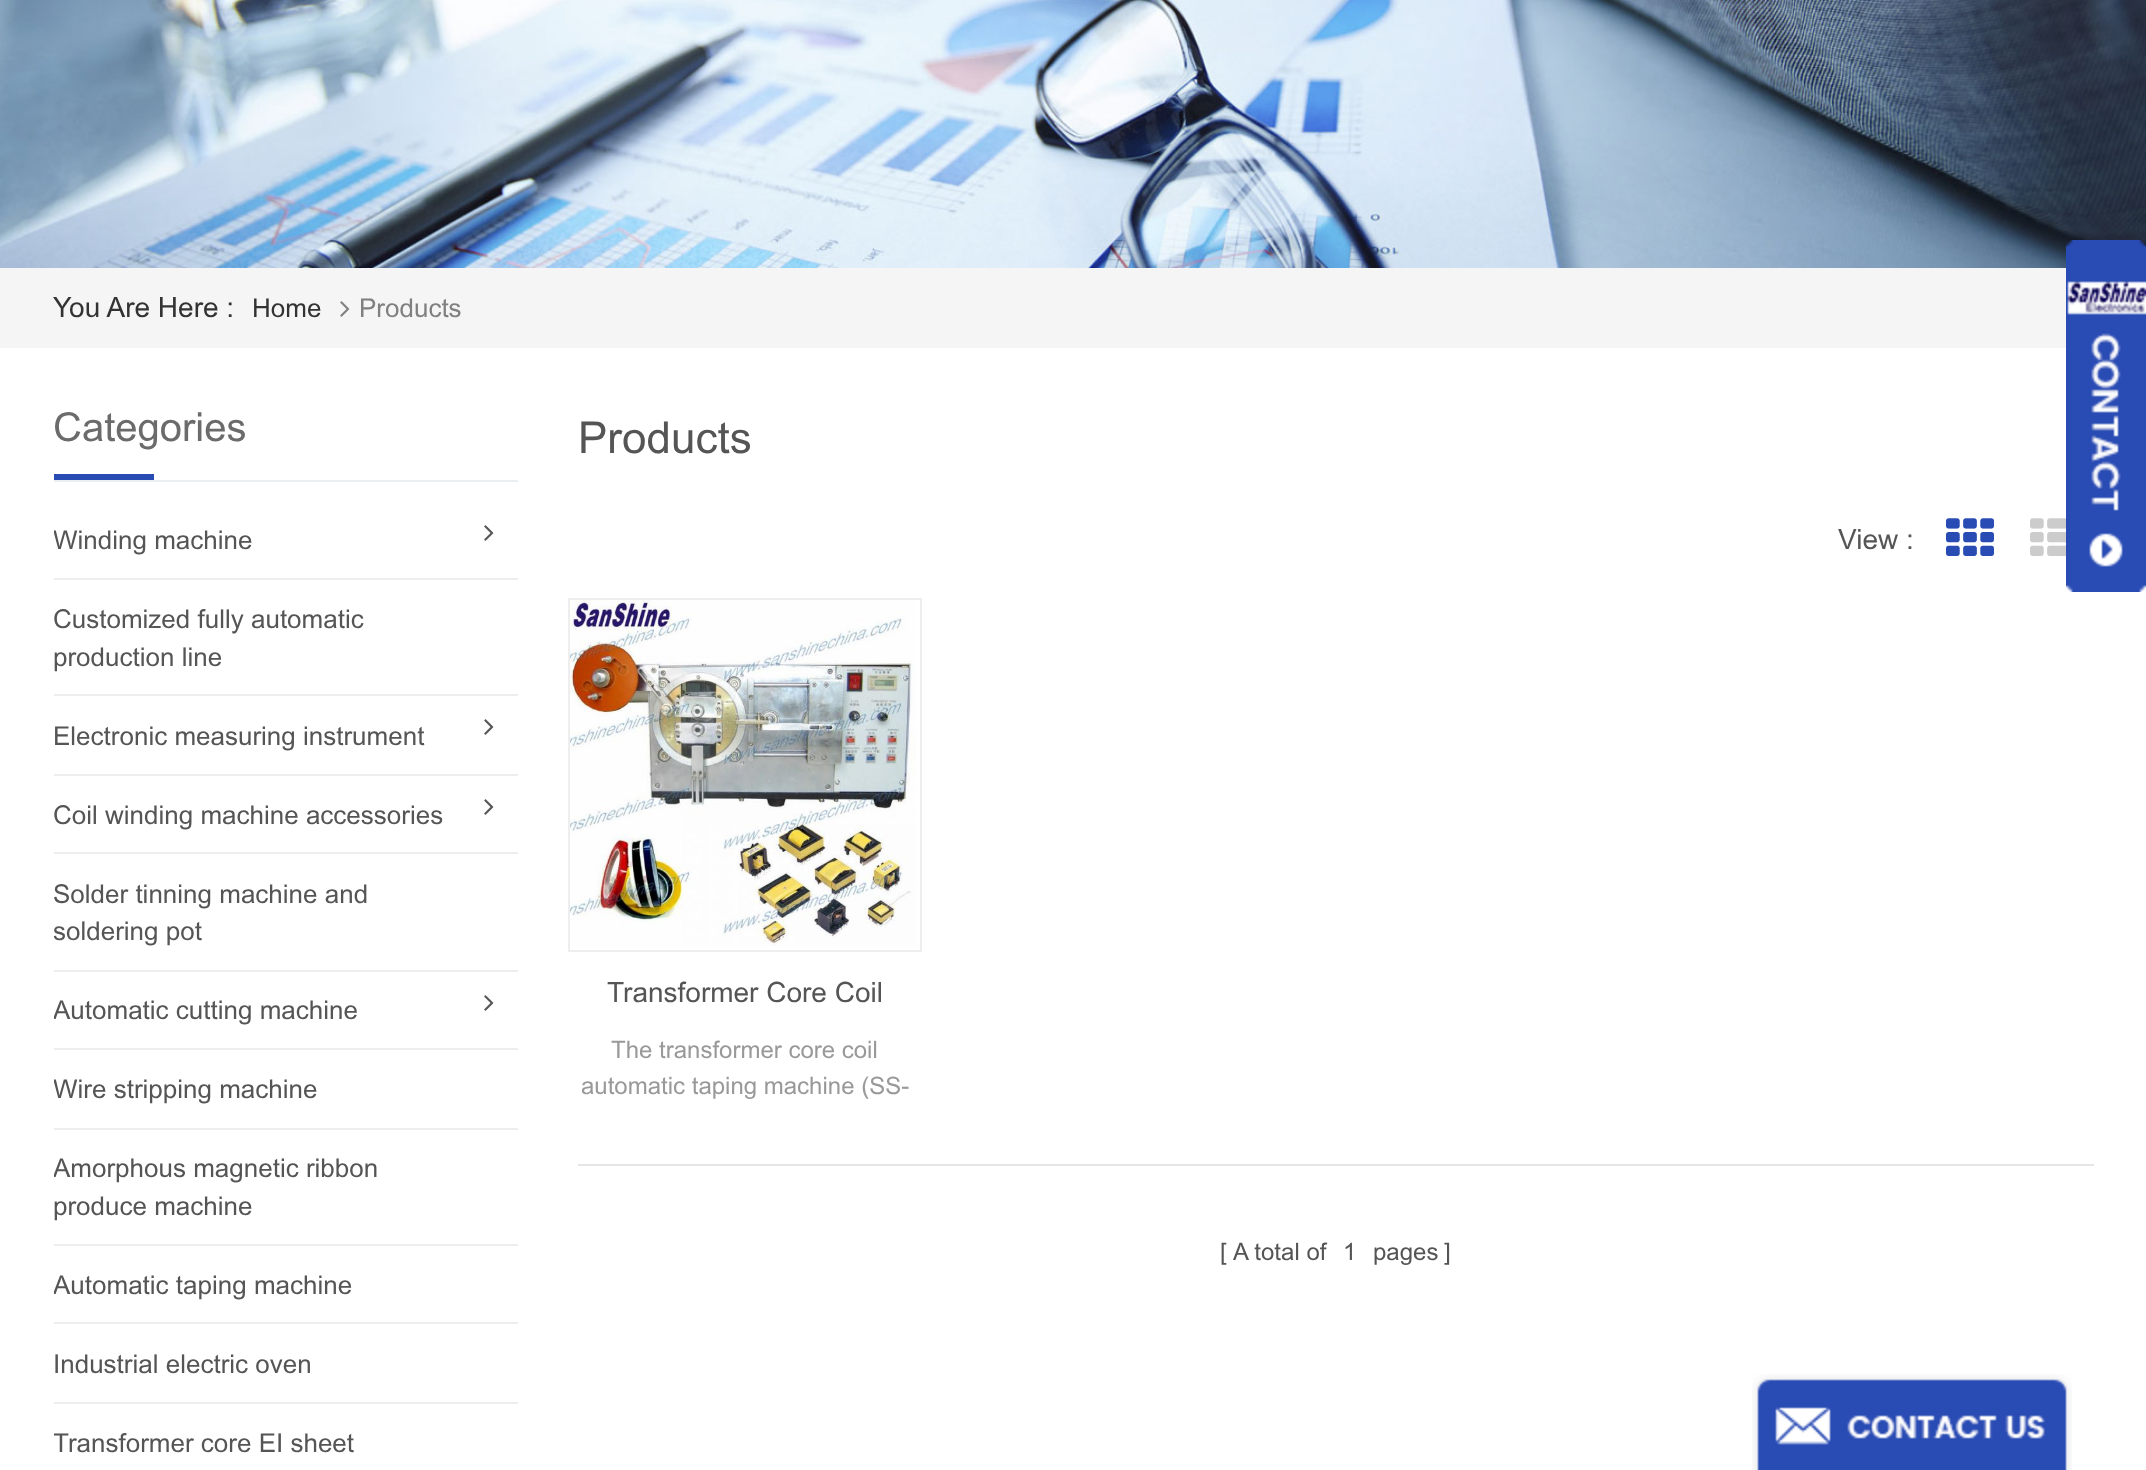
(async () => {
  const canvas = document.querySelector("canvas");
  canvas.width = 2146;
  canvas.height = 1470;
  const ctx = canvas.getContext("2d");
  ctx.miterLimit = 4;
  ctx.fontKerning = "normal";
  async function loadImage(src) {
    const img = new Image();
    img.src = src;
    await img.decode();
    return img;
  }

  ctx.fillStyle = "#ffffff";
  ctx.fillRect(0, 0, 2146, 1470);
  ctx.drawImage(await loadImage("img/1.png"), 0, 0, 2146, 268);
  ctx.fillStyle = "#f5f5f5";
  ctx.fillRect(0, 268, 2066, 80);
  ctx.drawImage(await loadImage("img/2.png"), 340, 301, 10, 16);
  ctx.drawImage(await loadImage("img/3.png"), 2066, 240, 80, 352);
  for (const [x, y, w, h, color] of [
    [54, 480, 464, 2, "#eceff1"],
    [54, 474, 100, 6, "#294bb4"],
    [54, 578, 464, 2, "#eeeeee"],
  ]) {
    ctx.fillStyle = color;
    ctx.fillRect(x, y, w, h);
  }
  ctx.drawImage(await loadImage("img/4.png"), 484, 525, 10, 16);
  ctx.fillRect(54, 694, 464, 2);
  ctx.fillRect(54, 774, 464, 2);
  ctx.drawImage(await loadImage("img/4.png"), 484, 719, 10, 16);
  ctx.fillRect(54, 852, 464, 2);
  ctx.drawImage(await loadImage("img/4.png"), 484, 799, 10, 16);
  ctx.fillRect(54, 970, 464, 2);
  ctx.fillRect(54, 1048, 464, 2);
  ctx.drawImage(await loadImage("img/4.png"), 484, 995, 10, 16);
  for (const [x, y, w, h, color] of [
    [54, 1128, 464, 2, "#eeeeee"],
    [54, 1244, 464, 2, "#eeeeee"],
    [54, 1322, 464, 2, "#eeeeee"],
    [54, 1402, 464, 2, "#eeeeee"],
  ]) {
    ctx.fillStyle = color;
    ctx.fillRect(x, y, w, h);
  }
  ctx.drawImage(await loadImage("img/5.png"), 1946, 518, 48, 38);
  ctx.drawImage(await loadImage("img/6.png"), 2030, 518, 36, 38);
  ctx.strokeStyle = "#eeeeee";
  ctx.lineWidth = 2;
  ctx.strokeRect(569, 599, 352, 352);
  ctx.drawImage(await loadImage("img/7.png"), 570, 600, 346, 346);
  ctx.fillStyle = "#e5e5e5";
  ctx.fillRect(578, 1164, 1516, 2);
  ctx.drawImage(await loadImage("img/8.png"), 1752, 1374, 320, 96);
  ctx.font = "28px Arial";
  ctx.fillStyle = "#333333";
  ctx.fillText("You Are Here :", 53, 317);
  ctx.font = "26px Arial";
  ctx.fillText("Home", 252, 317);
  ctx.fillStyle = "#808080";
  ctx.fillText("Products", 359, 317);
  ctx.font = "40px Arial";
  ctx.fillStyle = "#6b6b6b";
  ctx.fillText("Categories", 53, 441);
  ctx.save();
  ctx.beginPath();
  ctx.rect(54, 502, 464, 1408);
  ctx.clip();
  ctx.font = "26px Arial";
  ctx.fillStyle = "#555555";
  ctx.fillText("Winding machine", 53, 549);
  ctx.restore();
  ctx.font = "26px Arial";
  ctx.fillStyle = "#555555";
  for (const [text, x, y] of [
    ["Customized fully automatic", 53, 628],
    ["production line", 53, 666],
    ["Electronic measuring instrument", 53, 745],
    ["Coil winding machine accessories", 53, 824],
    ["Solder tinning machine and", 53, 903],
    ["soldering pot", 53, 940],
  ]) {
    ctx.fillText(text, x, y);
  }
  ctx.save();
  ctx.beginPath();
  ctx.rect(54, 502, 464, 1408);
  ctx.clip();
  for (const [text, x, y] of [
    ["Automatic cutting machine", 53, 1019],
    ["Wire stripping machine", 53, 1098],
    ["Amorphous magnetic ribbon", 53, 1177],
  ]) {
    ctx.fillText(text, x, y);
  }
  ctx.restore();
  ctx.fillText("produce machine", 53, 1215);
  ctx.save();
  ctx.beginPath();
  ctx.rect(54, 502, 464, 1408);
  ctx.clip();
  ctx.fillText("Automatic taping machine", 53, 1294);
  ctx.restore();
  ctx.fillText("Industrial electric oven", 53, 1373);
  ctx.save();
  ctx.beginPath();
  ctx.rect(54, 502, 464, 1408);
  ctx.clip();
  ctx.fillText("Transformer core EI sheet", 53, 1452);
  ctx.restore();
  ctx.font = "44px Arial";
  ctx.fillText("Products", 578, 453);
  ctx.font = "28px Arial";
  ctx.fillText("View :", 1838, 549);
  ctx.fillText("Transformer Core Coil", 607, 1002);
  ctx.font = "24px Arial";
  ctx.fillStyle = "#999999";
  ctx.fillText("The transformer core coil", 611, 1058);
  ctx.fillText("automatic taping machine (SS-", 581, 1094);
  ctx.fillStyle = "#555555";
  for (const [text, x, y] of [
    ["[", 1220, 1260],
    ["A total of", 1233, 1260],
    ["1", 1343, 1260],
    ["pages", 1373, 1260],
    ["]", 1444, 1260],
  ]) {
    ctx.fillText(text, x, y);
  }
})();
